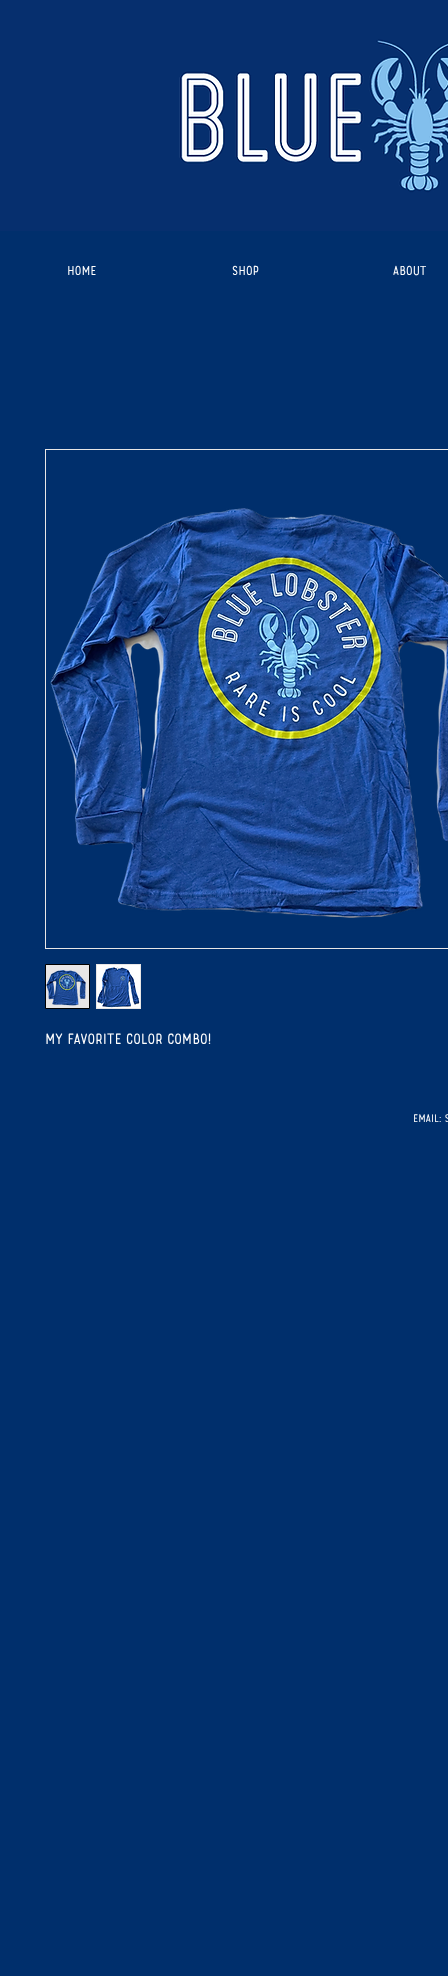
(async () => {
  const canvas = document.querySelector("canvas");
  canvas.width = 448;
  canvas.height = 1976;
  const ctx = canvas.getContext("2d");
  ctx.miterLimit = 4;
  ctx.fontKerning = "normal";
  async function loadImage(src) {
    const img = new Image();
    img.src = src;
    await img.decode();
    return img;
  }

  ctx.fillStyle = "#002f6c";
  ctx.fillRect(0, 0, 448, 1976);
  ctx.drawImage(await loadImage("img/1.png"), 0, 0, 448, 231);
  ctx.strokeStyle = "#e8e6e6";
  ctx.strokeRect(45.5, 449.5, 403, 499);
  ctx.drawImage(await loadImage("img/2.png"), 50, 508, 398, 410);
  ctx.fillStyle = "#e8e6e6";
  ctx.beginPath();
  ctx.rect(45.5, 964.5, 44, 44);
  ctx.fill();
  ctx.strokeStyle = "#000000";
  ctx.stroke();
  ctx.drawImage(await loadImage("img/3.png"), 46, 970, 40, 36);
  ctx.fillRect(96, 964, 45, 45);
  ctx.drawImage(await loadImage("img/4.png"), 97, 965, 43, 43);
  ctx.font = "13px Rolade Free";
  ctx.fillStyle = "#ffffff";
  for (const [text, x, y] of [
    ["HOME", 67, 275],
    ["SHOP", 232, 275],
    ["ABOUT", 393, 275],
  ]) {
    ctx.fillText(text, x, y);
  }
  ctx.font = "15px Rolade Free";
  ctx.fillText("My favorite color combo!", 45, 1044);
  ctx.font = "11px Rolade Free";
  ctx.fillText("EMAIL: S", 413, 1122);
})();
